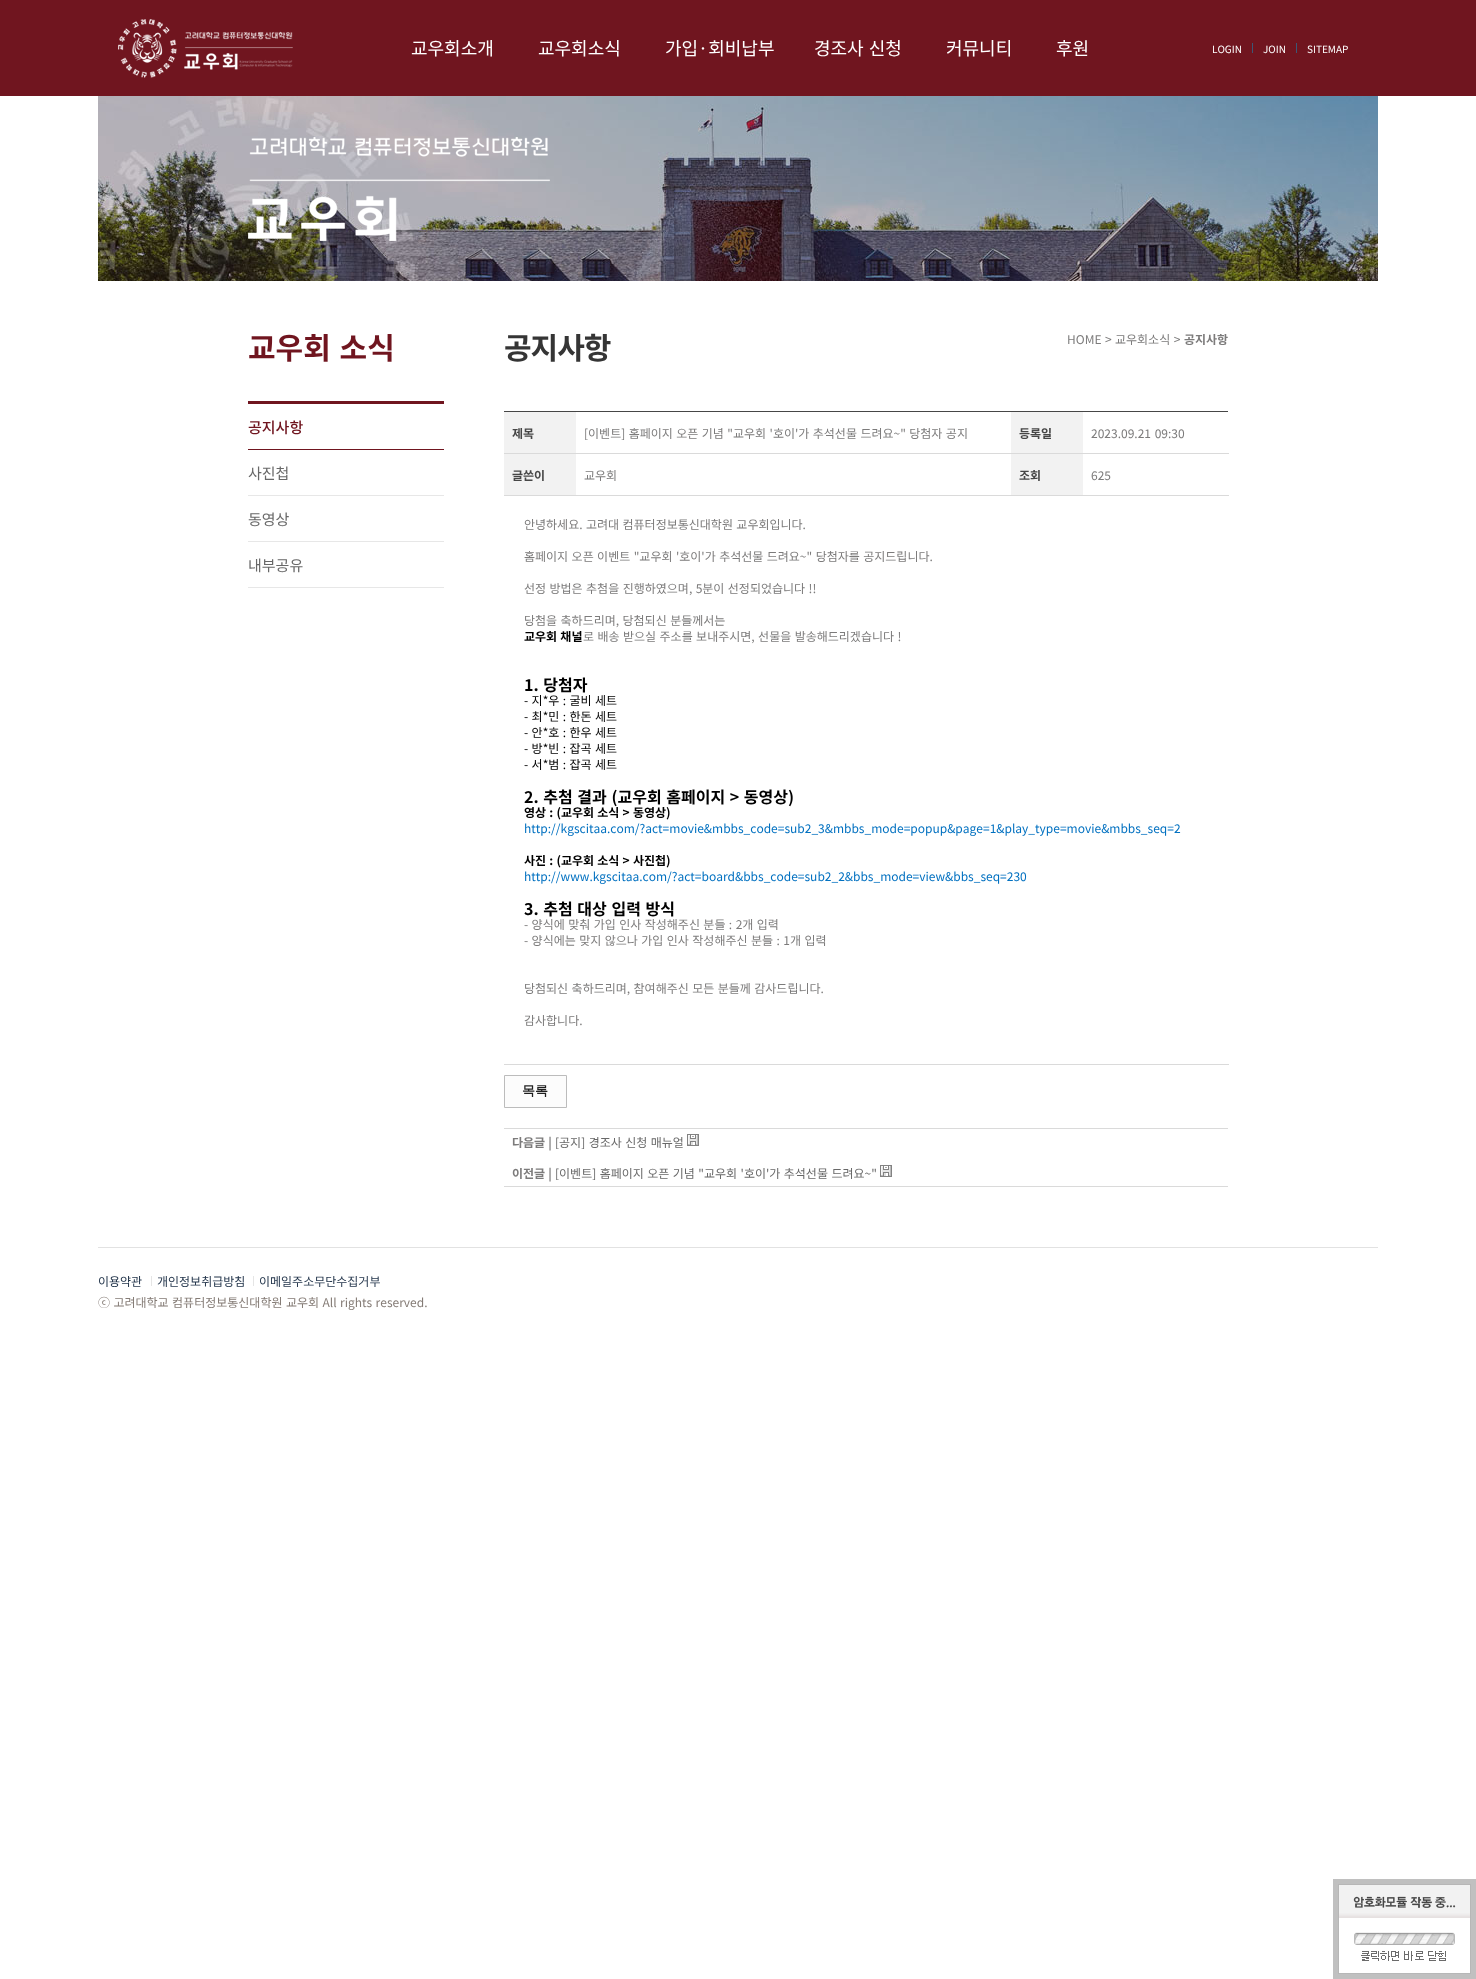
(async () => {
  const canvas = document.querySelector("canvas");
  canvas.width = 1476;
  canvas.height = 1979;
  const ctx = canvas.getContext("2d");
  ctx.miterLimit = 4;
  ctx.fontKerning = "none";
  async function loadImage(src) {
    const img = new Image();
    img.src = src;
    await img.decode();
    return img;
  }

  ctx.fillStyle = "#ffffff";
  ctx.fillRect(0, 0, 1476, 1979);
  ctx.fillStyle = "#70151f";
  ctx.fillRect(0, 0, 1476, 96);
  ctx.drawImage(await loadImage("img/1.png"), 118, 19, 175, 59);
  ctx.fillStyle = "#3c5775";
  ctx.fillRect(1252, 43, 1, 10);
  ctx.fillRect(1296, 43, 1, 10);
  ctx.drawImage(await loadImage("img/2.png"), 98, 96, 1280, 185);
  ctx.drawImage(await loadImage("img/3.png"), 248, 137, 302, 104);
  for (const [x, y, w, h, color] of [
    [248, 401, 196, 3, "#70151f"],
    [248, 449, 196, 1, "#70151f"],
    [248, 495, 196, 1, "#e7e7e7"],
    [248, 541, 196, 1, "#e7e7e7"],
    [248, 587, 196, 1, "#e7e7e7"],
    [504, 411, 724, 1, "#464646"],
    [504, 412, 72, 41, "#f2f2f2"],
    [1011, 412, 72, 41, "#f2f2f2"],
    [504, 453, 725, 1, "#dadada"],
    [504, 454, 72, 41, "#f2f2f2"],
    [1011, 454, 72, 41, "#f2f2f2"],
    [504, 495, 725, 1, "#dadada"],
    [504, 1064, 725, 1, "#dadada"],
  ]) {
    ctx.fillStyle = color;
    ctx.fillRect(x, y, w, h);
  }
  ctx.fillStyle = "#fcfcfc";
  ctx.beginPath();
  ctx.rect(504.5, 1075.5, 62, 32);
  ctx.fill();
  ctx.strokeStyle = "#bcbcbc";
  ctx.stroke();
  ctx.fillStyle = "#dadada";
  ctx.fillRect(504, 1128, 724, 1);
  ctx.drawImage(await loadImage("img/4.png"), 687, 1134, 12, 12);
  ctx.fillRect(504, 1186, 724, 1);
  ctx.drawImage(await loadImage("img/4.png"), 880, 1165, 12, 12);
  for (const [x, y, w, h, color] of [
    [98, 1247, 1280, 1, "#e2e2e2"],
    [151, 1276, 1, 10, "#e5e5e5"],
    [253, 1276, 1, 10, "#e5e5e5"],
    [1333, 1879, 143, 100, "#c0c0c0"],
  ]) {
    ctx.fillStyle = color;
    ctx.fillRect(x, y, w, h);
  }
  ctx.drawImage(await loadImage("img/5.png"), 1338, 1884, 133, 90);
  ctx.font = "18px Noto Sans KR";
  ctx.fillStyle = "#ffffff";
  for (const [text, x, y] of [
    ["교우회소개", 411, 55],
    ["교우회소식", 538, 55],
    ["가입·회비납부", 665, 55],
  ]) {
    ctx.fillText(text, x, y);
  }
  ctx.wordSpacing = "1px";
  ctx.fillText("경조사 신청", 814, 55);
  ctx.wordSpacing = "0px";
  ctx.fillText("커뮤니티", 946, 55);
  ctx.fillText("후원", 1056, 55);
  ctx.font = "10px Noto Sans KR";
  for (const [text, x, y] of [
    ["LOGIN", 1212, 53],
    ["JOIN", 1263, 53],
    ["SITEMAP", 1307, 53],
  ]) {
    ctx.fillText(text, x, y);
  }
  ctx.wordSpacing = "2px";
  ctx.font = "bold 30px Noto Sans KR";
  ctx.fillStyle = "#70151f";
  ctx.fillText("교우회 소식", 248, 359);
  ctx.wordSpacing = "0px";
  ctx.font = "500 15px Noto Sans KR";
  ctx.fillText("공지사항", 248, 433);
  ctx.font = "15px Noto Sans KR";
  ctx.fillStyle = "#686868";
  for (const [text, x, y] of [
    ["사진첩", 248, 479],
    ["동영상", 248, 525],
    ["내부공유", 248, 571],
  ]) {
    ctx.fillText(text, x, y);
  }
  ctx.letterSpacing = "-1px";
  ctx.font = "bold 30px Noto Sans KR";
  ctx.fillStyle = "#353535";
  ctx.fillText("공지사항", 504, 359);
  ctx.letterSpacing = "0px";
  ctx.wordSpacing = "0.75px";
  ctx.font = "12px Noto Sans KR";
  ctx.fillStyle = "#7c7b7b";
  ctx.fillText("HOME > 교우회소식 >", 1067, 344);
  ctx.wordSpacing = "0px";
  ctx.font = "bold 12px Noto Sans KR";
  ctx.fillText("공지사항", 1184, 344);
  ctx.fillStyle = "#464646";
  ctx.fillText("제목", 512, 438);
  ctx.wordSpacing = "0.75px";
  ctx.font = "12px Noto Sans KR";
  ctx.fillStyle = "#7c7b7b";
  ctx.fillText("[이벤트] 홈페이지 오픈 기념 \"교우회 '호이'가 추석선물 드려요~\" 당첨자 공지", 584, 438);
  ctx.wordSpacing = "0px";
  ctx.font = "bold 12px Noto Sans KR";
  ctx.fillStyle = "#464646";
  ctx.fillText("등록일", 1019, 438);
  ctx.wordSpacing = "1px";
  ctx.font = "12px Noto Sans KR";
  ctx.fillStyle = "#7c7b7b";
  ctx.fillText("2023.09.21 09:30", 1091, 438);
  ctx.wordSpacing = "0px";
  ctx.font = "bold 12px Noto Sans KR";
  ctx.fillStyle = "#464646";
  ctx.fillText("글쓴이", 512, 480);
  ctx.font = "12px Noto Sans KR";
  ctx.fillStyle = "#7c7b7b";
  ctx.fillText("교우회", 584, 480);
  ctx.font = "bold 12px Noto Sans KR";
  ctx.fillStyle = "#464646";
  ctx.fillText("조회", 1019, 480);
  ctx.font = "12px Noto Sans KR";
  ctx.fillStyle = "#7c7b7b";
  ctx.fillText("625", 1091, 480);
  ctx.wordSpacing = "0.75px";
  for (const [text, x, y] of [
    ["안녕하세요. 고려대 컴퓨터정보통신대학원 교우회입니다.", 524, 529],
    ["홈페이지 오픈 이벤트 \"교우회 '호이'가 추석선물 드려요~\" 당첨자를 공지드립니다.", 524, 561],
    ["선정 방법은 추첨을 진행하였으며, 5분이 선정되었습니다 !!", 524, 593],
    ["당첨을 축하드리며, 당첨되신 분들께서는", 524, 625],
  ]) {
    ctx.fillText(text, x, y);
  }
  ctx.wordSpacing = "0.5px";
  ctx.font = "bold 12px Noto Sans KR";
  ctx.fillStyle = "#000000";
  ctx.fillText("교우회 채널", 524, 641);
  ctx.wordSpacing = "0.75px";
  ctx.font = "12px Noto Sans KR";
  ctx.fillStyle = "#7c7b7b";
  ctx.fillText("로 배송 받으실 주소를 보내주시면, 선물을 발송해드리겠습니다 !", 583, 641);
  ctx.wordSpacing = "1px";
  ctx.font = "bold 16px Noto Sans KR";
  ctx.fillStyle = "#000000";
  ctx.fillText("1. 당첨자", 524, 691);
  ctx.wordSpacing = "0.75px";
  ctx.font = "12px Noto Sans KR";
  for (const [text, x, y] of [
    ["- 지*우 : 굴비 세트", 524, 705],
    ["- 최*민 : 한돈 세트", 524, 721],
    ["- 안*호 : 한우 세트", 524, 737],
    ["- 방*빈 : 잡곡 세트", 524, 753],
    ["- 서*범 : 잡곡 세트", 524, 769],
  ]) {
    ctx.fillText(text, x, y);
  }
  ctx.wordSpacing = "1px";
  ctx.font = "bold 16px Noto Sans KR";
  ctx.fillText("2. 추첨 결과 (교우회 홈페이지 > 동영상)", 524, 803);
  ctx.wordSpacing = "0.5px";
  ctx.font = "bold 12px Noto Sans KR";
  ctx.fillText("영상 : (교우회 소식 > 동영상)", 524, 817);
  ctx.wordSpacing = "0px";
  ctx.font = "12px Noto Sans KR";
  ctx.fillStyle = "#0070c0";
  ctx.fillText("http://kgscitaa.com/?act=movie&mbbs_code=sub2_3&mbbs_mode=popup&page=1&play_type=movie&mbbs_seq=2", 524, 833);
  ctx.wordSpacing = "0.5px";
  ctx.font = "bold 12px Noto Sans KR";
  ctx.fillStyle = "#000000";
  ctx.fillText("사진 : (교우회 소식 > 사진첩)", 524, 865);
  ctx.wordSpacing = "0px";
  ctx.font = "12px Noto Sans KR";
  ctx.fillStyle = "#0070c0";
  ctx.fillText("http://www.kgscitaa.com/?act=board&bbs_code=sub2_2&bbs_mode=view&bbs_seq=230", 524, 881);
  ctx.wordSpacing = "1px";
  ctx.font = "bold 16px Noto Sans KR";
  ctx.fillStyle = "#000000";
  ctx.fillText("3. 추첨 대상 입력 방식", 524, 915);
  ctx.wordSpacing = "0.75px";
  ctx.font = "12px Noto Sans KR";
  ctx.fillStyle = "#7c7b7b";
  for (const [text, x, y] of [
    ["- 양식에 맞춰 가입 인사 작성해주신 분들 : 2개 입력", 524, 929],
    ["- 양식에는 맞지 않으나 가입 인사 작성해주신 분들 : 1개 입력", 524, 945],
    ["당첨되신 축하드리며, 참여해주신 모든 분들께 감사드립니다.", 524, 993],
  ]) {
    ctx.fillText(text, x, y);
  }
  ctx.wordSpacing = "0px";
  ctx.fillText("감사합니다.", 524, 1025);
  ctx.font = "bold 13px WenQuanYi Zen Hei";
  ctx.fillStyle = "#1f1f1f";
  ctx.fillText("목록", 522, 1095);
  ctx.wordSpacing = "0.5px";
  ctx.font = "bold 12px Noto Sans KR";
  ctx.fillStyle = "#7c7b7b";
  ctx.fillText("다음글 |", 512, 1147);
  ctx.wordSpacing = "0.75px";
  ctx.font = "12px Noto Sans KR";
  ctx.fillStyle = "#686868";
  ctx.fillText("[공지] 경조사 신청 매뉴얼", 555, 1147);
  ctx.wordSpacing = "0.5px";
  ctx.font = "bold 12px Noto Sans KR";
  ctx.fillStyle = "#7c7b7b";
  ctx.fillText("이전글 |", 512, 1178);
  ctx.wordSpacing = "0.75px";
  ctx.font = "12px Noto Sans KR";
  ctx.fillStyle = "#686868";
  ctx.fillText("[이벤트] 홈페이지 오픈 기념 \"교우회 '호이'가 추석선물 드려요~\"", 555, 1178);
  ctx.wordSpacing = "0px";
  ctx.fillStyle = "#24364c";
  for (const [text, x, y] of [
    ["이용약관", 98, 1286],
    ["개인정보취급방침", 157, 1286],
    ["이메일주소무단수집거부", 259, 1286],
  ]) {
    ctx.fillText(text, x, y);
  }
  ctx.wordSpacing = "0.75px";
  ctx.fillStyle = "#847b75";
  ctx.fillText("ⓒ 고려대학교 컴퓨터정보통신대학원 교우회 All rights reserved.", 98, 1307);
})();
